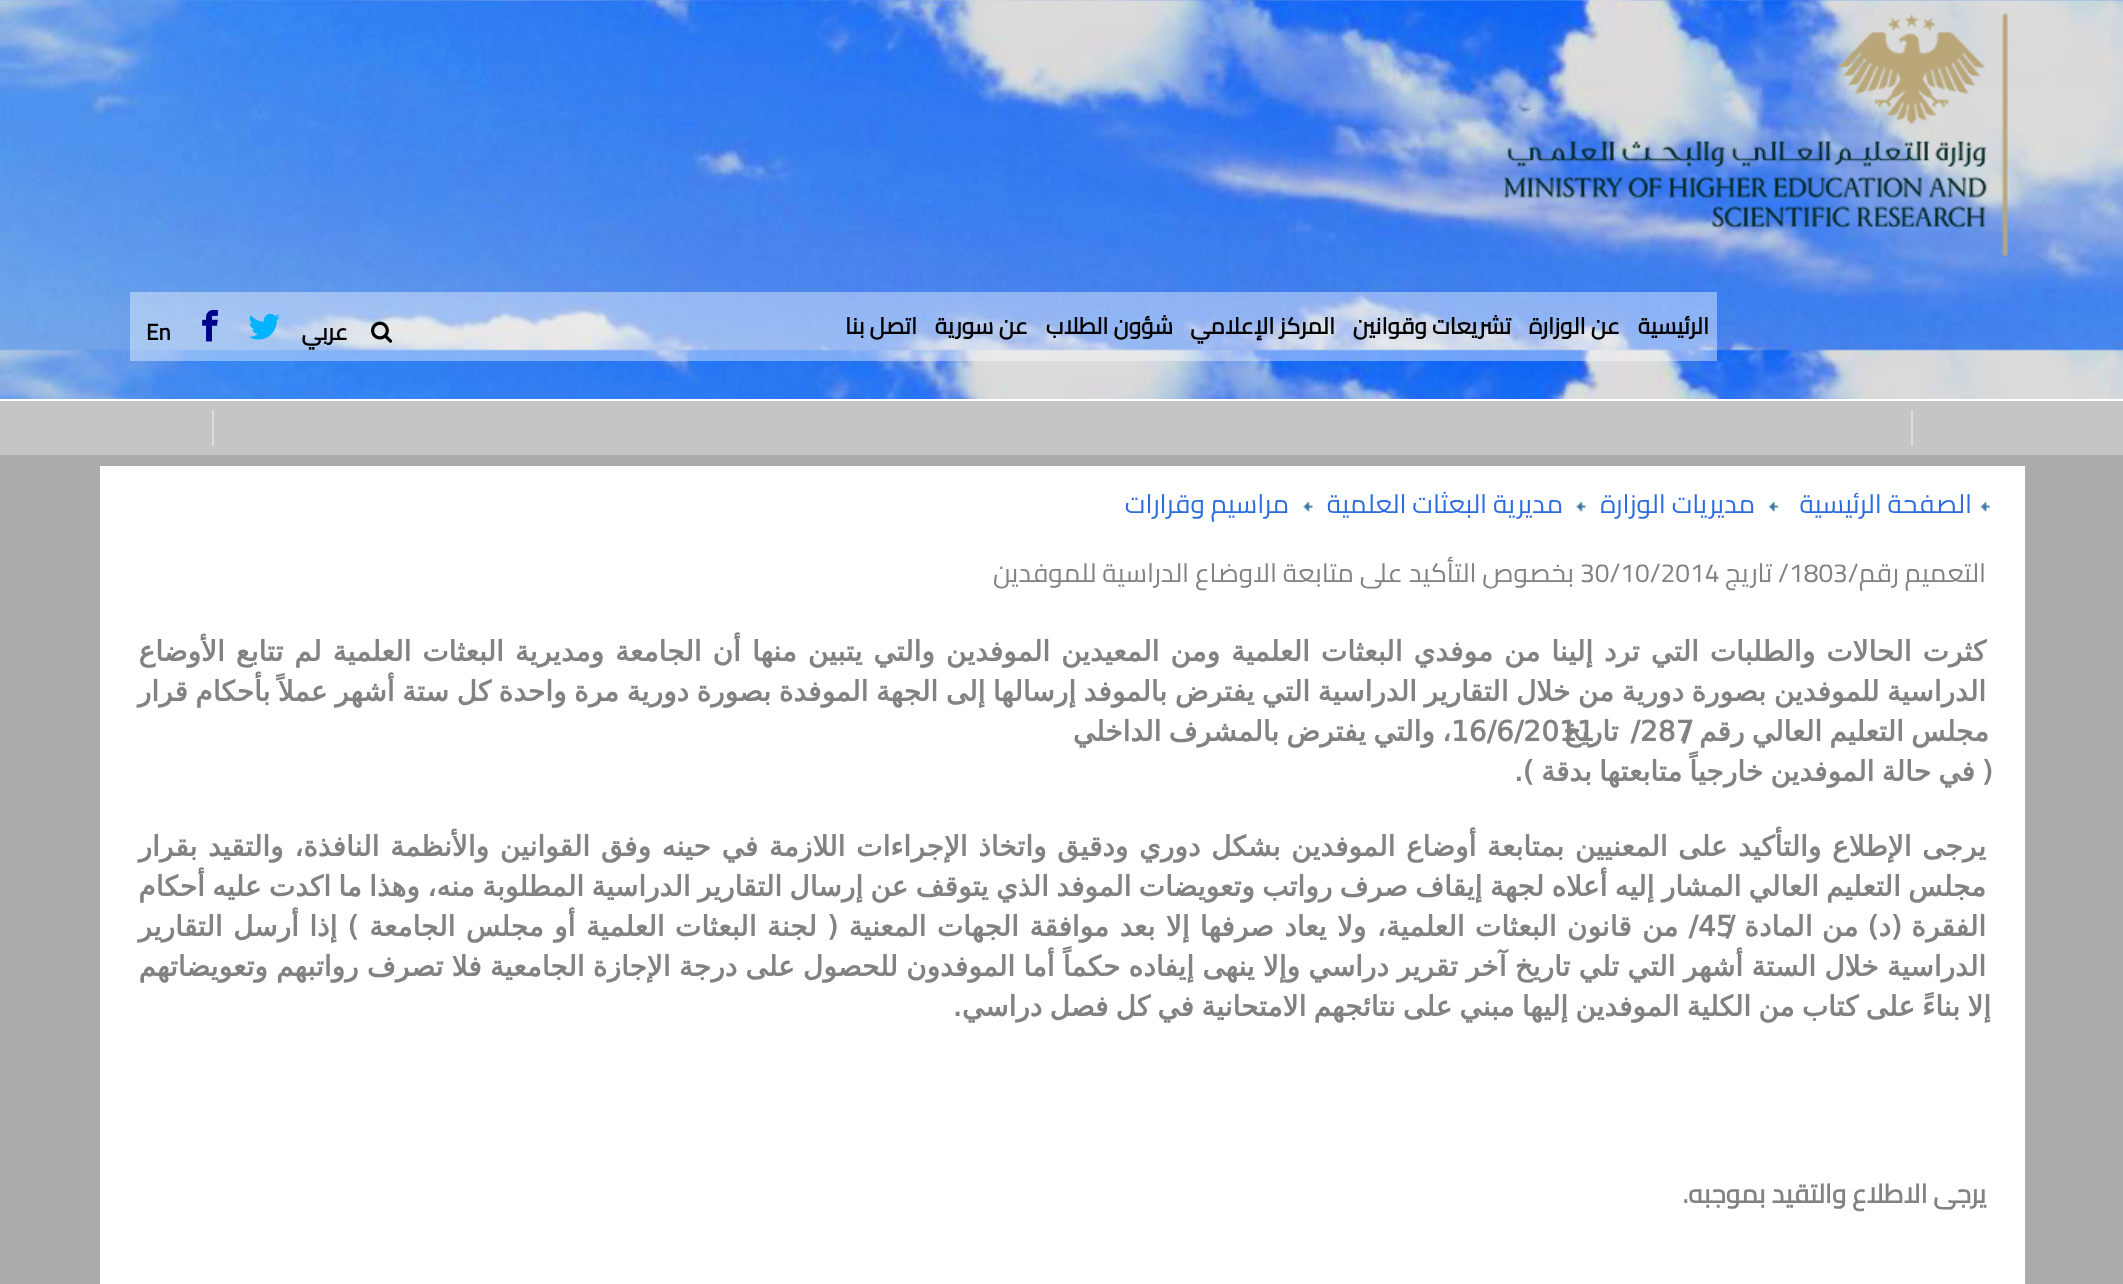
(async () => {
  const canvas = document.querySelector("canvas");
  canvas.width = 2123;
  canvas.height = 1284;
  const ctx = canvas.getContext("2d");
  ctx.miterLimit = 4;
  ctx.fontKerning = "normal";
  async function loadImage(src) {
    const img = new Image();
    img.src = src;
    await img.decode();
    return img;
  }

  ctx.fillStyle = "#aaaaaa";
  ctx.fillRect(0, 0, 2123, 1284);
  ctx.drawImage(await loadImage("img/1.png"), 0, 0, 2123, 399);
  ctx.fillStyle = "#ffffff";
  ctx.fillRect(0, 399, 2123, 2);
  ctx.drawImage(await loadImage("img/2.png"), 1504, 13, 504, 243);
  ctx.fillStyle = "rgba(255, 255, 255, 0.4)";
  ctx.fillRect(130, 292, 1587, 69);
  ctx.drawImage(await loadImage("img/3.png"), 371, 321, 22, 22);
  ctx.drawImage(await loadImage("img/4.png"), 248, 313, 32, 27);
  ctx.drawImage(await loadImage("img/5.png"), 202, 310, 16, 32);
  for (const [x, y, w, h, color] of [
    [0, 401, 2123, 54, "#c5c5c5"],
    [1911, 410, 2, 36, "#dddddd"],
    [212, 410, 2, 36, "#dddddd"],
    [100, 466, 1925, 818, "#ffffff"],
  ]) {
    ctx.fillStyle = color;
    ctx.fillRect(x, y, w, h);
  }
  ctx.drawImage(await loadImage("img/6.png"), 1980, 501, 11, 11);
  ctx.drawImage(await loadImage("img/7.png"), 1768, 501, 11, 11);
  ctx.drawImage(await loadImage("img/8.png"), 1576, 501, 10, 11);
  ctx.drawImage(await loadImage("img/8.png"), 1303, 501, 10, 11);
  ctx.direction = "rtl";
  ctx.font = "bold 22.75px Cairo";
  ctx.fillStyle = "#000000";
  for (const [text, x, y] of [
    ["الرئيسية", 1709, 334],
    ["عن الوزارة", 1620, 334],
    ["تشريعات وقوانين", 1511, 334],
    ["المركز الإعلامي", 1335, 334],
    ["شؤون الطلاب", 1173, 334],
    ["عن سورية", 1028, 334],
    ["اتصل بنا", 917, 334],
    ["عربي", 348, 340],
  ]) {
    ctx.fillText(text, x, y);
  }
  ctx.direction = "ltr";
  ctx.fillText("En", 146, 340);
  ctx.direction = "rtl";
  ctx.font = "26.25px Cairo";
  ctx.fillStyle = "#2d6cdf";
  for (const [text, x, y] of [
    ["الصفحة الرئيسية", 1972, 513],
    ["مديريات الوزارة", 1755, 513],
    ["مديرية البعثات العلمية", 1563, 513],
    ["مراسيم وقرارات", 1289, 513],
  ]) {
    ctx.fillText(text, x, y);
  }
  ctx.fillStyle = "#828282";
  ctx.fillText("التعميم رقم/", 1986, 582);
  ctx.direction = "ltr";
  ctx.fillText("1803", 1789, 582);
  ctx.direction = "rtl";
  ctx.fillText("/ تاريج", 1789, 582);
  ctx.direction = "ltr";
  ctx.fillText("30/10/2014", 1580, 582);
  ctx.direction = "rtl";
  ctx.fillText("بخصوص التأكيد على متابعة الاوضاع الدراسية للموفدين", 1574, 582);
  ctx.wordSpacing = "2.1px";
  ctx.font = "bold 28px DejaVu Sans";
  ctx.fillText("كثرت الحالات والطلبات التي ترد إلينا من موفدي البعثات العلمية ومن المعيدين الموفدين والتي يتبين منها أن الجامعة ومديرية البعثات العلمية لم تتابع الأوضاع", 1986, 661);
  ctx.wordSpacing = "-1.4px";
  ctx.fillText("الدراسية للموفدين بصورة دورية من خلال التقارير الدراسية التي يفترض بالموفد إرسالها إلى الجهة الموفدة بصورة دورية مرة واحدة كل ستة أشهر عملاً بأحكام قرار", 1986, 701);
  ctx.wordSpacing = "0px";
  ctx.direction = "ltr";
  ctx.fillText("287", 1640, 741);
  ctx.wordSpacing = "-1.7px";
  ctx.direction = "rtl";
  ctx.fillText("مجلس التعليم العالي رقم /", 1989, 741);
  ctx.fillText("، والتي يفترض بالمشرف الداخلي", 1451, 741);
  ctx.wordSpacing = "0px";
  ctx.direction = "ltr";
  ctx.fillText("16/6/2011", 1451, 741);
  ctx.wordSpacing = "3px";
  ctx.direction = "rtl";
  ctx.fillText("/ تاريخ", 1640, 741);
  ctx.wordSpacing = "-1.7px";
  ctx.fillText("( في حالة الموفدين خارجياً متابعتها بدقة ).", 1993, 781);
  ctx.wordSpacing = "1.75px";
  ctx.fillText("يرجى الإطلاع والتأكيد على المعنيين بمتابعة أوضاع الموفدين بشكل دوري ودقيق واتخاذ الإجراءات اللازمة في حينه وفق القوانين والأنظمة النافذة، والتقيد بقرار", 1986, 856);
  ctx.wordSpacing = "-1.6px";
  ctx.fillText("مجلس التعليم العالي المشار إليه أعلاه لجهة إيقاف صرف رواتب وتعويضات الموفد الذي يتوقف عن إرسال التقارير الدراسية المطلوبة منه، وهذا ما اكدت عليه أحكام", 1986, 896);
  ctx.wordSpacing = "0px";
  ctx.direction = "ltr";
  ctx.fillText("45", 1698, 936);
  ctx.wordSpacing = "0.5px";
  ctx.direction = "rtl";
  ctx.fillText("الفقرة (د) من المادة /", 1986, 936);
  ctx.wordSpacing = "1.45px";
  ctx.fillText("/ من قانون البعثات العلمية، ولا يعاد صرفها إلا بعد موافقة الجهات المعنية ( لجنة البعثات العلمية أو مجلس الجامعة ) إذا أرسل التقارير", 1698, 936);
  ctx.wordSpacing = "-0.7px";
  ctx.fillText("الدراسية خلال الستة أشهر التي تلي تاريخ آخر تقرير دراسي وإلا ينهى إيفاده حكماً أما الموفدون للحصول على درجة الإجازة الجامعية فلا تصرف رواتبهم وتعويضاتهم", 1986, 976);
  ctx.wordSpacing = "-1.7px";
  ctx.fillText("إلا بناءً على كتاب من الكلية الموفدين إليها مبني على نتائجهم الامتحانية في كل فصل دراسي.", 1991, 1016);
  ctx.wordSpacing = "0px";
  ctx.font = "bold 26.25px Cairo";
  ctx.fillText("يرجى الاطلاع والتقيد بموجبه.", 1986, 1203);
})();
